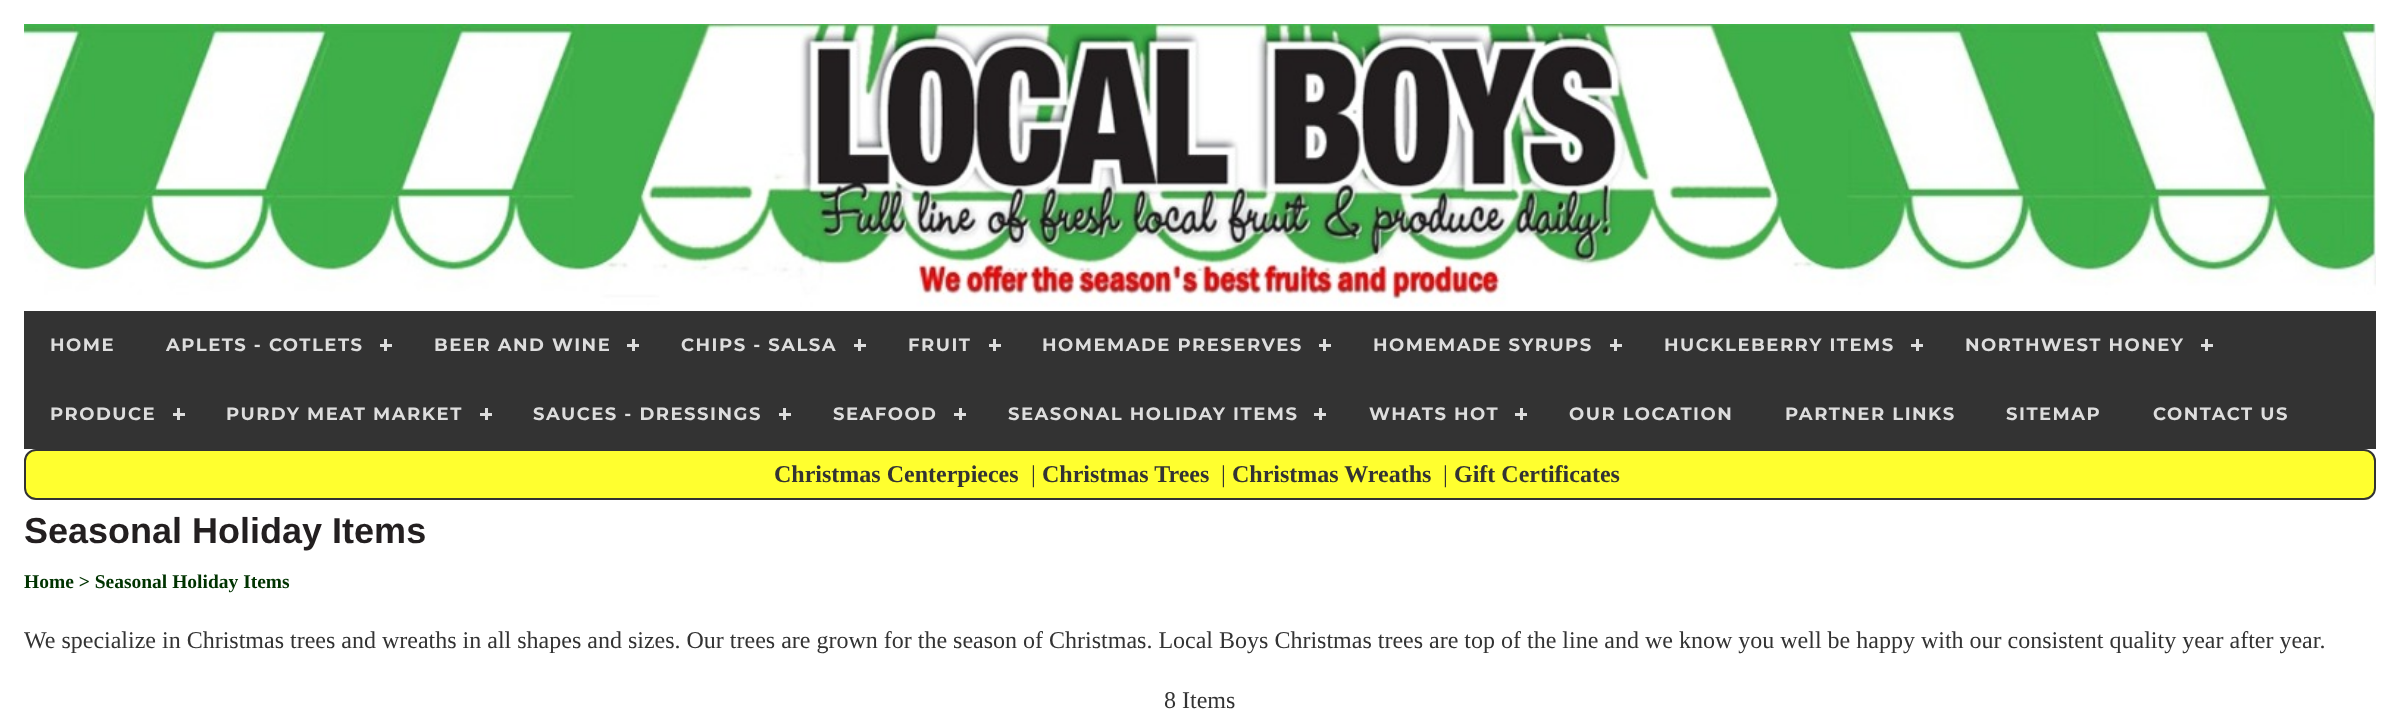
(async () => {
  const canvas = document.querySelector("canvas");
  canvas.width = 2399;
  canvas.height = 726;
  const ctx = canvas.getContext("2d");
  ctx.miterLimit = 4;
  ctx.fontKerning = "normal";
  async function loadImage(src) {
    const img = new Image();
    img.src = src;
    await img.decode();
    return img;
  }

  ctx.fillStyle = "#ffffff";
  ctx.fillRect(0, 0, 2399, 726);
  ctx.drawImage(await loadImage("img/1.png"), 24, 24, 2352, 283);
  for (const [x, y, w, h, color] of [
    [24, 311, 2352, 138, "#333333"],
    [384, 339, 3, 12, "#dddddd"],
    [380, 344, 12, 3, "#dddddd"],
    [632, 339, 3, 12, "#dddddd"],
    [627, 344, 12, 3, "#dddddd"],
    [858, 339, 3, 12, "#dddddd"],
    [854, 344, 12, 3, "#dddddd"],
    [993, 339, 3, 12, "#dddddd"],
    [989, 344, 12, 3, "#dddddd"],
    [1323, 339, 3, 12, "#dddddd"],
    [1319, 344, 12, 3, "#dddddd"],
    [1614, 339, 3, 12, "#dddddd"],
    [1610, 344, 12, 3, "#dddddd"],
    [1916, 339, 3, 12, "#dddddd"],
    [1911, 344, 12, 3, "#dddddd"],
    [2205, 339, 3, 12, "#dddddd"],
    [2201, 344, 12, 3, "#dddddd"],
    [177, 408, 3, 12, "#dddddd"],
    [173, 413, 12, 3, "#dddddd"],
    [485, 408, 3, 12, "#dddddd"],
    [480, 413, 12, 3, "#dddddd"],
    [783, 408, 3, 12, "#dddddd"],
    [779, 413, 12, 3, "#dddddd"],
    [959, 408, 3, 12, "#dddddd"],
    [954, 413, 12, 3, "#dddddd"],
    [1319, 408, 3, 12, "#dddddd"],
    [1314, 413, 12, 3, "#dddddd"],
    [1520, 408, 3, 12, "#dddddd"],
    [1515, 413, 12, 3, "#dddddd"],
  ]) {
    ctx.fillStyle = color;
    ctx.fillRect(x, y, w, h);
  }
  ctx.fillStyle = "#ffff2f";
  ctx.beginPath();
  ctx.roundRect(25, 450, 2350, 49, 11);
  ctx.fill();
  ctx.strokeStyle = "#333333";
  ctx.lineWidth = 2;
  ctx.stroke();
  ctx.letterSpacing = "1.5px";
  ctx.font = "bold 18px Montserrat";
  ctx.fillStyle = "#dddddd";
  for (const [text, x, y] of [
    ["HOME", 50, 351],
    ["APLETS - COTLETS", 166, 351],
    ["BEER AND WINE", 434, 351],
    ["CHIPS - SALSA", 681, 351],
    ["FRUIT", 908, 351],
    ["HOMEMADE PRESERVES", 1042, 351],
    ["HOMEMADE SYRUPS", 1373, 351],
    ["HUCKLEBERRY ITEMS", 1664, 351],
    ["NORTHWEST HONEY", 1965, 351],
    ["PRODUCE", 50, 420],
    ["PURDY MEAT MARKET", 226, 420],
    ["SAUCES - DRESSINGS", 533, 420],
    ["SEAFOOD", 833, 420],
    ["SEASONAL HOLIDAY ITEMS", 1008, 420],
    ["WHATS HOT", 1369, 420],
    ["OUR LOCATION", 1569, 420],
    ["PARTNER LINKS", 1785, 420],
    ["SITEMAP", 2006, 420],
    ["CONTACT US", 2153, 420],
  ]) {
    ctx.fillText(text, x, y);
  }
  ctx.letterSpacing = "0px";
  ctx.font = "bold 24px Liberation Serif";
  ctx.fillStyle = "#333333";
  ctx.fillText("Christmas Centerpieces", 774, 482);
  ctx.font = "24px Liberation Serif";
  ctx.fillText("|", 1031, 482);
  ctx.font = "bold 24px Liberation Serif";
  ctx.fillText("Christmas Trees", 1042, 482);
  ctx.font = "24px Liberation Serif";
  ctx.fillText("|", 1221, 482);
  ctx.font = "bold 24px Liberation Serif";
  ctx.fillText("Christmas Wreaths", 1232, 482);
  ctx.font = "24px Liberation Serif";
  ctx.fillText("|", 1443, 482);
  ctx.font = "bold 24px Liberation Serif";
  ctx.fillText("Gift Certificates", 1454, 482);
  ctx.font = "bold 36px Liberation Sans";
  ctx.fillStyle = "#231f20";
  ctx.fillText("Seasonal Holiday Items", 24, 543);
  ctx.font = "bold 19.5px Liberation Serif";
  ctx.fillStyle = "#003300";
  ctx.fillText("Home > Seasonal Holiday Items", 24, 588);
  ctx.font = "24px Liberation Serif";
  ctx.fillStyle = "#333333";
  ctx.fillText("We specialize in Christmas trees and wreaths in all shapes and sizes. Our trees are grown for the season of Christmas. Local Boys Christmas trees are top of the line and we know you well be happy with our consistent quality year after year.", 24, 648);
  ctx.fillText("8 Items", 1164, 708);
})();
